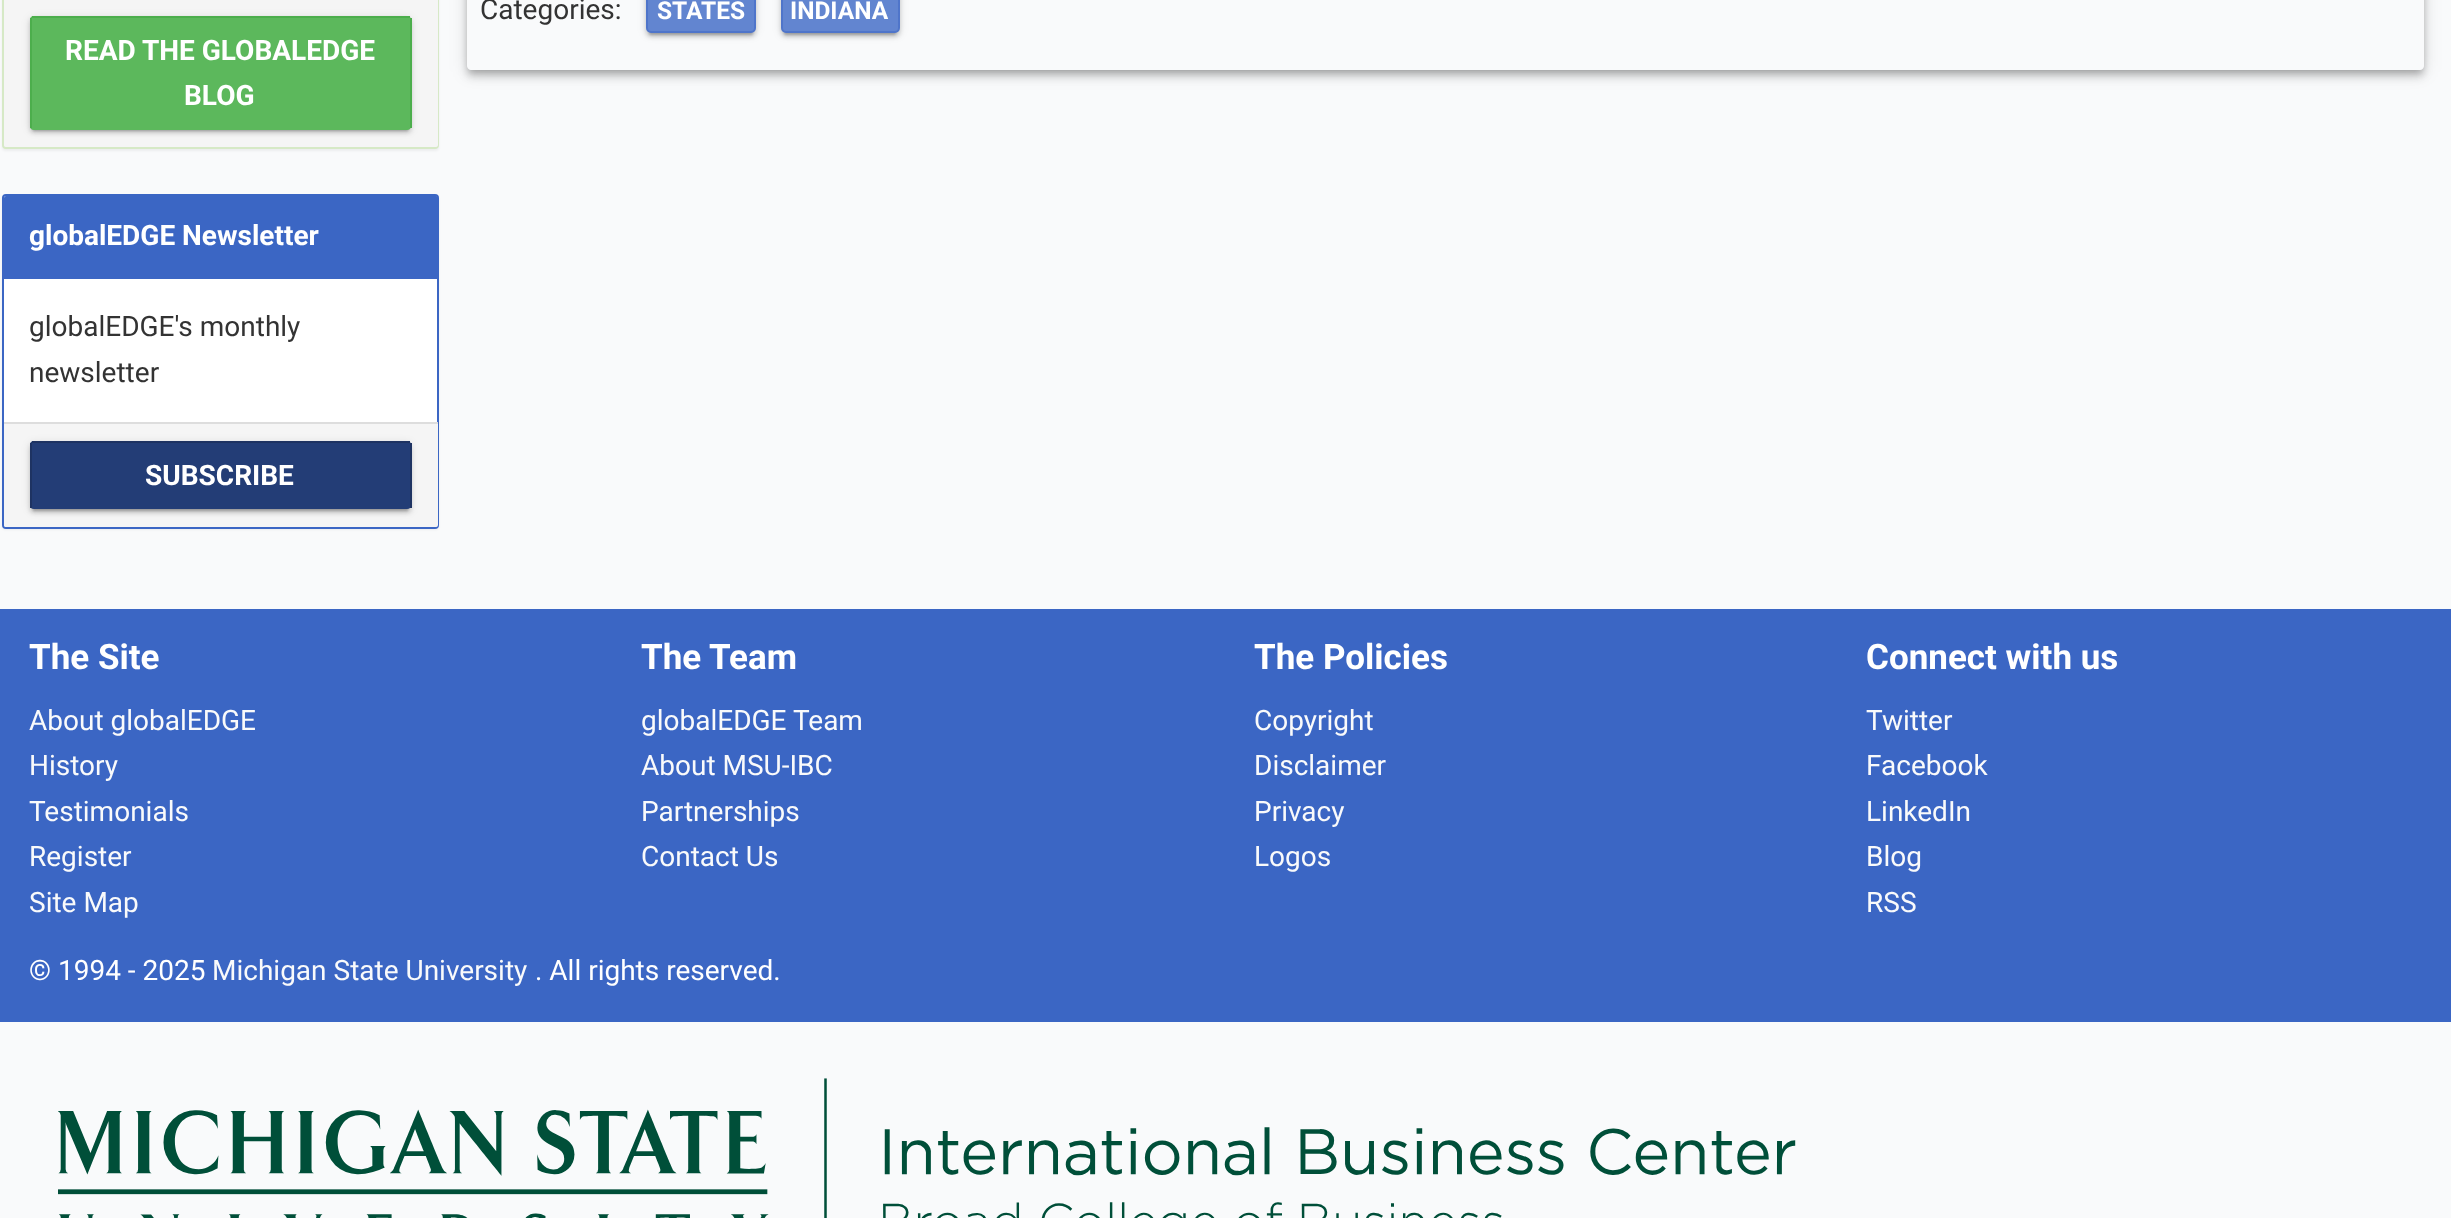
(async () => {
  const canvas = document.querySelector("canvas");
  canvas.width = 2451;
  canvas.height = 1218;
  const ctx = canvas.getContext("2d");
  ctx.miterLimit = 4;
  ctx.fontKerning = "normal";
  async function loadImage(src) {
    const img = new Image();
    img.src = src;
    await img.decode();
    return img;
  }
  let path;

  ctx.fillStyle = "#f9fafb";
  ctx.fillRect(0, 0, 2451, 1218);
  ctx.save();
  path = new Path2D("M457 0H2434V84H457ZM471-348H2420C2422-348 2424-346 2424-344V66C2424 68 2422 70 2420 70H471C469 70 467 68 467 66V-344C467-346 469-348 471-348Z");
  ctx.clip(path, "evenodd");
  ctx.fillStyle = "rgba(0, 0, 0, 0.2)";
  ctx.filter = "blur(3.5px)";
  ctx.beginPath();
  ctx.roundRect(469, -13, 1953, 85, 2);
  ctx.fill();
  ctx.filter = "none";
  ctx.restore();
  ctx.save();
  path = new Path2D("M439 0H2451V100H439ZM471-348H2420C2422-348 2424-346 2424-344V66C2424 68 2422 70 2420 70H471C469 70 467 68 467 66V-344C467-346 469-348 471-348Z");
  ctx.clip(path, "evenodd");
  ctx.fillStyle = "rgba(0, 0, 0, 0.12)";
  ctx.filter = "blur(9px)";
  ctx.beginPath();
  ctx.roundRect(467, -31, 1957, 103, 4);
  ctx.fill();
  ctx.filter = "none";
  ctx.restore();
  ctx.save();
  path = new Path2D("M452 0H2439V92H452ZM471-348H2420C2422-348 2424-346 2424-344V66C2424 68 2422 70 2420 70H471C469 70 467 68 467 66V-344C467-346 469-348 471-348Z");
  ctx.clip(path, "evenodd");
  ctx.fillStyle = "rgba(0, 0, 0, 0.14)";
  ctx.filter = "blur(4.5px)";
  ctx.beginPath();
  ctx.roundRect(467, -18, 1957, 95, 4);
  ctx.fill();
  ctx.filter = "none";
  ctx.restore();
  ctx.fillStyle = "rgba(0, 0, 0, 0.12)";
  ctx.filter = "blur(4.5px)";
  ctx.beginPath();
  ctx.roundRect(646, -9, 110, 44, 5);
  ctx.fill();
  ctx.filter = "none";
  ctx.fillStyle = "rgba(0, 0, 0, 0.2)";
  ctx.filter = "blur(1px)";
  ctx.beginPath();
  ctx.roundRect(649, -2, 104, 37, 2);
  ctx.fill();
  ctx.filter = "none";
  ctx.fillStyle = "rgba(0, 0, 0, 0.14)";
  ctx.filter = "blur(2px)";
  ctx.beginPath();
  ctx.roundRect(646, -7, 110, 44, 5);
  ctx.fill();
  ctx.filter = "none";
  ctx.fillStyle = "#6285d0";
  ctx.beginPath();
  ctx.roundRect(647, -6, 108, 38, 4);
  ctx.fill();
  ctx.strokeStyle = "#4f75ca";
  ctx.lineWidth = 2;
  ctx.stroke();
  ctx.fillStyle = "rgba(0, 0, 0, 0.12)";
  ctx.filter = "blur(4.5px)";
  ctx.beginPath();
  ctx.roundRect(781, -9, 119, 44, 5);
  ctx.fill();
  ctx.filter = "none";
  ctx.fillStyle = "rgba(0, 0, 0, 0.2)";
  ctx.filter = "blur(1px)";
  ctx.beginPath();
  ctx.roundRect(784, -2, 112, 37, 2);
  ctx.fill();
  ctx.filter = "none";
  ctx.fillStyle = "rgba(0, 0, 0, 0.14)";
  ctx.filter = "blur(2px)";
  ctx.beginPath();
  ctx.roundRect(781, -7, 119, 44, 5);
  ctx.fill();
  ctx.filter = "none";
  ctx.fillStyle = "#6285d0";
  ctx.beginPath();
  ctx.roundRect(782, -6, 117, 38, 4);
  ctx.fill();
  ctx.stroke();
  ctx.fillStyle = "rgba(0, 0, 0, 0.05)";
  ctx.filter = "blur(1px)";
  ctx.beginPath();
  ctx.roundRect(2, -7, 437, 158, 4);
  ctx.fill();
  ctx.filter = "none";
  ctx.beginPath();
  ctx.roundRect(3, -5, 435, 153, 3);
  ctx.strokeStyle = "#d6e9c6";
  ctx.stroke();
  ctx.fillStyle = "#f5f5f5";
  path = new Path2D("M4-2H438V145C438 146 437 147 436 147H6C5 147 4 146 4 145Z");
  ctx.fill(path);
  ctx.fillStyle = "rgba(0, 0, 0, 0.12)";
  ctx.filter = "blur(4.5px)";
  ctx.beginPath();
  ctx.roundRect(30, 18, 381, 113, 4);
  ctx.fill();
  ctx.filter = "none";
  ctx.fillStyle = "rgba(0, 0, 0, 0.2)";
  ctx.filter = "blur(1px)";
  ctx.beginPath();
  ctx.rect(33, 25, 375, 106);
  ctx.fill();
  ctx.filter = "none";
  ctx.fillStyle = "rgba(0, 0, 0, 0.14)";
  ctx.filter = "blur(2px)";
  ctx.beginPath();
  ctx.roundRect(30, 19, 381, 114, 4);
  ctx.fill();
  ctx.filter = "none";
  ctx.fillStyle = "#5cb85c";
  ctx.beginPath();
  ctx.roundRect(30, 16, 381, 114, 4);
  ctx.fill();
  for (const [x, y, w, h, color] of [
    [32, 16, 378, 2, "#4cae4c"],
    [410, 18, 2, 110, "#4cae4c"],
    [30, 18, 2, 110, "#4cae4c"],
  ]) {
    ctx.fillStyle = color;
    ctx.fillRect(x, y, w, h);
  }
  ctx.fillStyle = "rgba(0, 0, 0, 0.05)";
  ctx.filter = "blur(1px)";
  ctx.beginPath();
  ctx.roundRect(2, 196, 437, 334, 4);
  ctx.fill();
  ctx.filter = "none";
  ctx.fillStyle = "#ffffff";
  ctx.beginPath();
  ctx.roundRect(3, 195, 435, 333, 3);
  ctx.fill();
  ctx.strokeStyle = "#3b66c4";
  ctx.stroke();
  ctx.fillStyle = "#3b66c4";
  ctx.beginPath();
  ctx.roundRect(4, 196, 434, 82, [2, 2, 0, 0]);
  ctx.fill();
  ctx.fillRect(4, 278, 434, 1);
  ctx.fillStyle = "#f5f5f5";
  ctx.beginPath();
  ctx.roundRect(4, 422, 434, 105, [0, 0, 2, 2]);
  ctx.fill();
  ctx.fillStyle = "#dddddd";
  ctx.fillRect(4, 422, 434, 2);
  ctx.fillStyle = "rgba(0, 0, 0, 0.12)";
  ctx.filter = "blur(4.5px)";
  ctx.beginPath();
  ctx.roundRect(30, 443, 381, 68, 4);
  ctx.fill();
  ctx.filter = "none";
  ctx.fillStyle = "rgba(0, 0, 0, 0.2)";
  ctx.filter = "blur(1px)";
  ctx.beginPath();
  ctx.rect(33, 450, 375, 61);
  ctx.fill();
  ctx.filter = "none";
  ctx.fillStyle = "rgba(0, 0, 0, 0.14)";
  ctx.filter = "blur(2px)";
  ctx.beginPath();
  ctx.roundRect(30, 445, 381, 68, 4);
  ctx.fill();
  ctx.filter = "none";
  ctx.fillStyle = "#233d76";
  ctx.beginPath();
  ctx.roundRect(30, 441, 381, 68, 4);
  ctx.fill();
  for (const [x, y, w, h, color] of [
    [32, 441, 378, 2, "#1e3362"],
    [410, 443, 2, 65, "#1e3362"],
    [30, 443, 2, 65, "#1e3362"],
    [0, 609, 2451, 413, "#3b66c4"],
  ]) {
    ctx.fillStyle = color;
    ctx.fillRect(x, y, w, h);
  }
  ctx.drawImage(await loadImage("img/1.png"), 58, 1078, 1738, 140);
  ctx.font = "28px Roboto";
  ctx.fillStyle = "#333333";
  ctx.fillText("Categories:", 480, 19);
  ctx.font = "bold 24.5px Roboto";
  ctx.fillStyle = "#ffffff";
  ctx.fillText("STATES", 657, 19);
  ctx.fillText("INDIANA", 790, 19);
  ctx.font = "bold 28px Roboto";
  for (const [text, x, y] of [
    ["READ THE GLOBALEDGE", 65, 60],
    ["BLOG", 184, 105],
    ["globalEDGE Newsletter", 29, 245],
  ]) {
    ctx.fillText(text, x, y);
  }
  ctx.font = "28px Roboto";
  ctx.fillStyle = "#333333";
  ctx.fillText("globalEDGE's monthly", 29, 336);
  ctx.fillText("newsletter", 29, 382);
  ctx.font = "bold 28px Roboto";
  ctx.fillStyle = "#ffffff";
  ctx.fillText("SUBSCRIBE", 145, 485);
  ctx.font = "bold 35px Roboto";
  ctx.fillText("The Site", 29, 669);
  ctx.font = "28px Roboto";
  ctx.fillStyle = "#f9fafb";
  for (const [text, x, y] of [
    ["About globalEDGE", 29, 730],
    ["History", 29, 775],
    ["Testimonials", 29, 821],
    ["Register", 29, 866],
    ["Site Map", 29, 912],
  ]) {
    ctx.fillText(text, x, y);
  }
  ctx.font = "bold 35px Roboto";
  ctx.fillStyle = "#ffffff";
  ctx.fillText("The Team", 641, 669);
  ctx.font = "28px Roboto";
  ctx.fillStyle = "#f9fafb";
  for (const [text, x, y] of [
    ["globalEDGE Team", 641, 730],
    ["About MSU-IBC", 641, 775],
    ["Partnerships", 641, 821],
    ["Contact Us", 641, 866],
  ]) {
    ctx.fillText(text, x, y);
  }
  ctx.font = "bold 35px Roboto";
  ctx.fillStyle = "#ffffff";
  ctx.fillText("The Policies", 1254, 669);
  ctx.font = "28px Roboto";
  ctx.fillStyle = "#f9fafb";
  for (const [text, x, y] of [
    ["Copyright", 1254, 730],
    ["Disclaimer", 1254, 775],
    ["Privacy", 1254, 821],
    ["Logos", 1254, 866],
  ]) {
    ctx.fillText(text, x, y);
  }
  ctx.font = "bold 35px Roboto";
  ctx.fillStyle = "#ffffff";
  ctx.fillText("Connect with us", 1866, 669);
  ctx.font = "28px Roboto";
  ctx.fillStyle = "#f9fafb";
  for (const [text, x, y] of [
    ["Twitter", 1866, 730],
    ["Facebook", 1866, 775],
    ["LinkedIn", 1866, 821],
    ["Blog", 1866, 866],
    ["RSS", 1866, 912],
  ]) {
    ctx.fillText(text, x, y);
  }
  ctx.fillStyle = "#ffffff";
  ctx.fillText("© 1994 - 2025", 29, 980);
  ctx.fillStyle = "#f9fafb";
  ctx.fillText("Michigan State University", 212, 980);
  ctx.fillStyle = "#ffffff";
  ctx.fillText(". All rights reserved.", 535, 980);
})();
